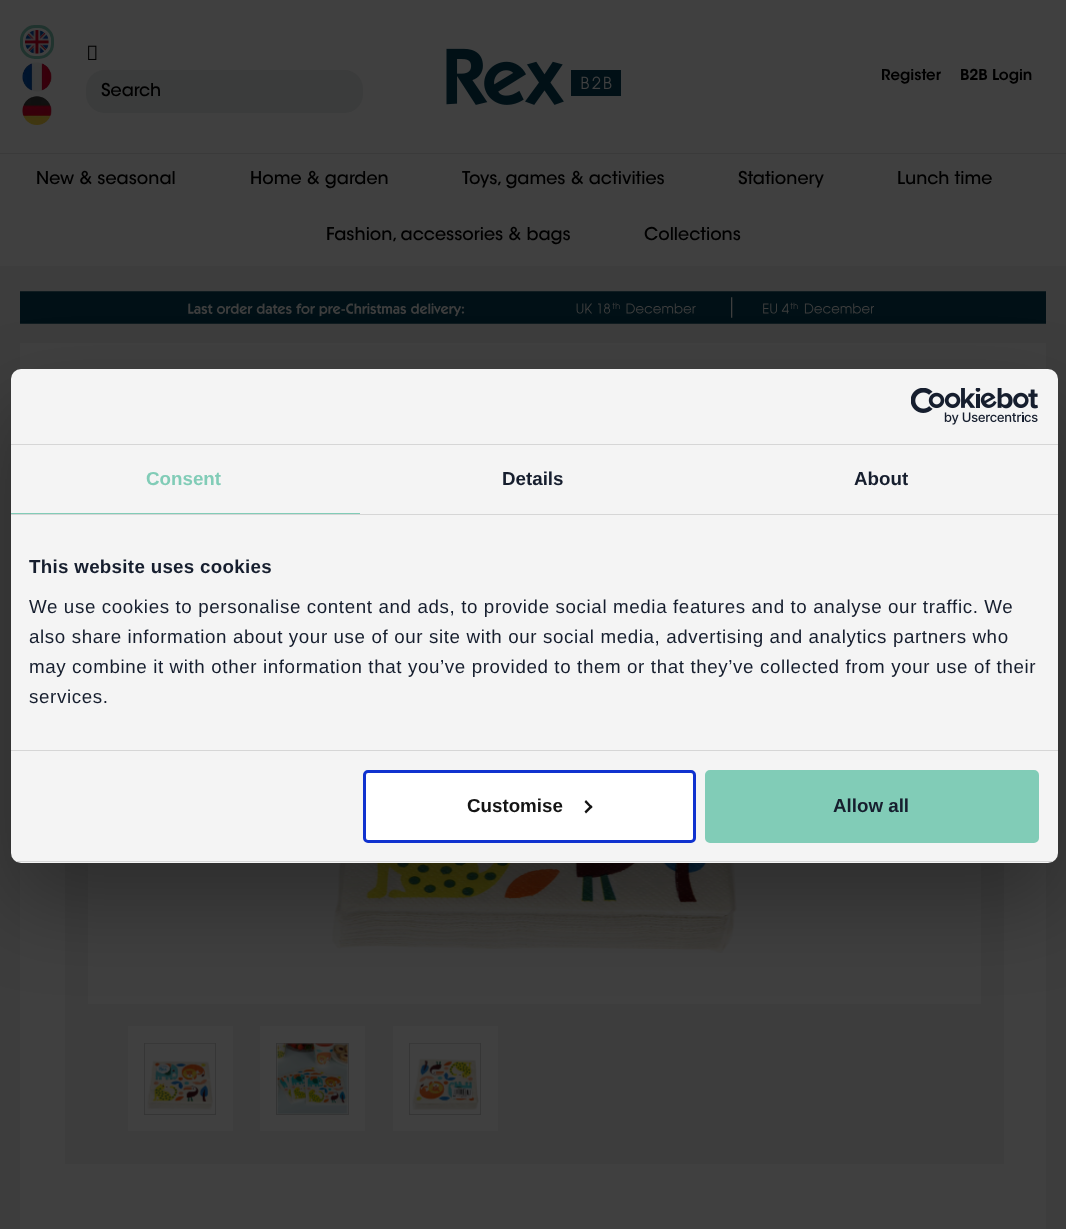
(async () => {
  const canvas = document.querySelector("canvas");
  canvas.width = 1066;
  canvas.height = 1229;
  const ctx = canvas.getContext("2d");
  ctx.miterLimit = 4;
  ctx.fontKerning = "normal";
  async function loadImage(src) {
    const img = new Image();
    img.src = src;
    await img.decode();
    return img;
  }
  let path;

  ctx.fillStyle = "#3d3d3d";
  ctx.fillRect(0, 0, 1066, 1229);
  ctx.fillStyle = "#404040";
  ctx.fillRect(0, 0, 1066, 153);
  ctx.fillStyle = "#3a3a3a";
  ctx.fillRect(0, 153, 1066, 1);
  ctx.drawImage(await loadImage("img/1.png"), 446, 48, 175, 57);
  ctx.beginPath();
  ctx.roundRect(21.5, 26.5, 31, 31, 13.5);
  ctx.strokeStyle = "#20332e";
  ctx.lineWidth = 3;
  ctx.stroke();
  ctx.drawImage(await loadImage("img/2.png"), 25, 30, 24, 24);
  ctx.drawImage(await loadImage("img/3.png"), 22, 62, 30, 30);
  ctx.drawImage(await loadImage("img/4.png"), 22, 96, 30, 29);
  ctx.drawImage(await loadImage("img/5.png"), 88, 45, 9, 15);
  ctx.fillStyle = "#3b3c3c";
  ctx.beginPath();
  ctx.roundRect(86, 70, 277, 43, 19);
  ctx.fill();
  ctx.fillStyle = "#404040";
  ctx.fillRect(0, 154, 1066, 112);
  ctx.drawImage(await loadImage("img/6.png"), 20, 291, 1026, 33);
  for (const [x, y, w, h, color] of [
    [20, 343, 1026, 886, "#404040"],
    [65, 863, 939, 301, "#3d3d3d"],
    [88, 863, 893, 141, "#404040"],
  ]) {
    ctx.fillStyle = color;
    ctx.fillRect(x, y, w, h);
  }
  ctx.drawImage(await loadImage("img/7.png"), 332, 863, 405, 90);
  ctx.fillRect(128, 1026, 105, 105);
  ctx.strokeStyle = "#343434";
  ctx.lineWidth = 1;
  ctx.strokeRect(144.5, 1043.5, 71, 71);
  ctx.drawImage(await loadImage("img/8.png"), 144, 1043, 72, 72);
  ctx.fillRect(260, 1026, 105, 105);
  ctx.strokeRect(276.5, 1043.5, 72, 71);
  ctx.drawImage(await loadImage("img/9.png"), 276, 1043, 72, 71);
  ctx.fillRect(393, 1026, 105, 105);
  ctx.strokeRect(409.5, 1043.5, 71, 71);
  ctx.drawImage(await loadImage("img/10.png"), 409, 1043, 72, 72);
  ctx.fillStyle = "rgba(0, 0, 0, 0.3)";
  ctx.filter = "blur(42.5px)";
  ctx.beginPath();
  ctx.roundRect(11, 409, 1047, 494, 10);
  ctx.fill();
  ctx.filter = "none";
  ctx.fillStyle = "#f4f4f4";
  ctx.beginPath();
  ctx.roundRect(11, 369, 1047, 494, 10);
  ctx.fill();
  ctx.fillStyle = "#d6d6d6";
  ctx.fillRect(11, 444, 1047, 1);
  ctx.drawImage(await loadImage("img/11.png"), 911, 388, 127, 37);
  for (const [x, y, w, h, color] of [
    [11, 514, 1047, 1, "#d6d6d6"],
    [11, 513, 349, 1, "#81ccb7"],
    [11, 750, 1047, 1, "#d6d6d6"],
  ]) {
    ctx.fillStyle = color;
    ctx.fillRect(x, y, w, h);
  }
  ctx.save();
  ctx.beginPath();
  ctx.roundRect(11, 369, 1047, 494, 10);
  ctx.clip();
  ctx.fillRect(11, 861, 1047, 1);
  ctx.restore();
  ctx.fillStyle = "#ffffff";
  ctx.beginPath();
  ctx.roundRect(364.5, 771.5, 330, 70, 3.5);
  ctx.fill();
  ctx.strokeStyle = "#1032cf";
  ctx.lineWidth = 3;
  ctx.stroke();
  ctx.fillStyle = "#141414";
  path = new Path2D("M586 800L592.5 807L591 808.5L584.5 802Z");
  ctx.fill(path);
  path = new Path2D("M591 805L592.5 807L586 813.5L584.5 811.5Z");
  ctx.fill(path);
  ctx.fillStyle = "#81ccb7";
  ctx.beginPath();
  ctx.roundRect(706.5, 771.5, 331, 70, 3.5);
  ctx.fill();
  ctx.strokeStyle = "#81ccb7";
  ctx.stroke();
  ctx.font = "600 15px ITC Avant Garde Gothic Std";
  ctx.fillStyle = "#000000";
  ctx.fillText("Register", 881, 80);
  ctx.fillText("B2B Login", 960, 80);
  ctx.font = "500 17.5px ITC Avant Garde Gothic Std";
  for (const [text, x, y] of [
    ["Search", 101, 96],
    ["New & seasonal", 36, 184],
    ["Home & garden", 250, 184],
    ["Toys, games & activities", 462, 184],
    ["Stationery", 738, 184],
    ["Lunch time", 897, 184],
    ["Fashion, accessories & bags", 326, 240],
    ["Collections", 644, 240],
  ]) {
    ctx.fillText(text, x, y);
  }
  ctx.font = "bold 18.75px Liberation Sans";
  ctx.fillStyle = "#81ccb7";
  ctx.fillText("Consent", 146, 485);
  ctx.fillStyle = "#161e2e";
  ctx.fillText("Details", 502, 485);
  ctx.fillText("About", 854, 485);
  ctx.letterSpacing = "0.3px";
  ctx.fillText("This website uses cookies", 29, 573);
  ctx.letterSpacing = "0.62px";
  ctx.font = "18.75px Liberation Sans";
  for (const [text, x, y] of [
    ["We use cookies to personalise content and ads, to provide social media features and to analyse our traffic. We", 29, 613],
    ["also share information about your use of our site with our social media, advertising and analytics partners who", 29, 643],
    ["may combine it with other information that you’ve provided to them or that they’ve collected from your use of their", 29, 673],
    ["services.", 29, 703],
  ]) {
    ctx.fillText(text, x, y);
  }
  ctx.letterSpacing = "0px";
  ctx.font = "bold 18.75px Liberation Sans";
  ctx.fillStyle = "#141414";
  ctx.fillText("Customise", 467, 812);
  ctx.fillStyle = "#161e2e";
  ctx.fillText("Allow all", 833, 812);
})();
